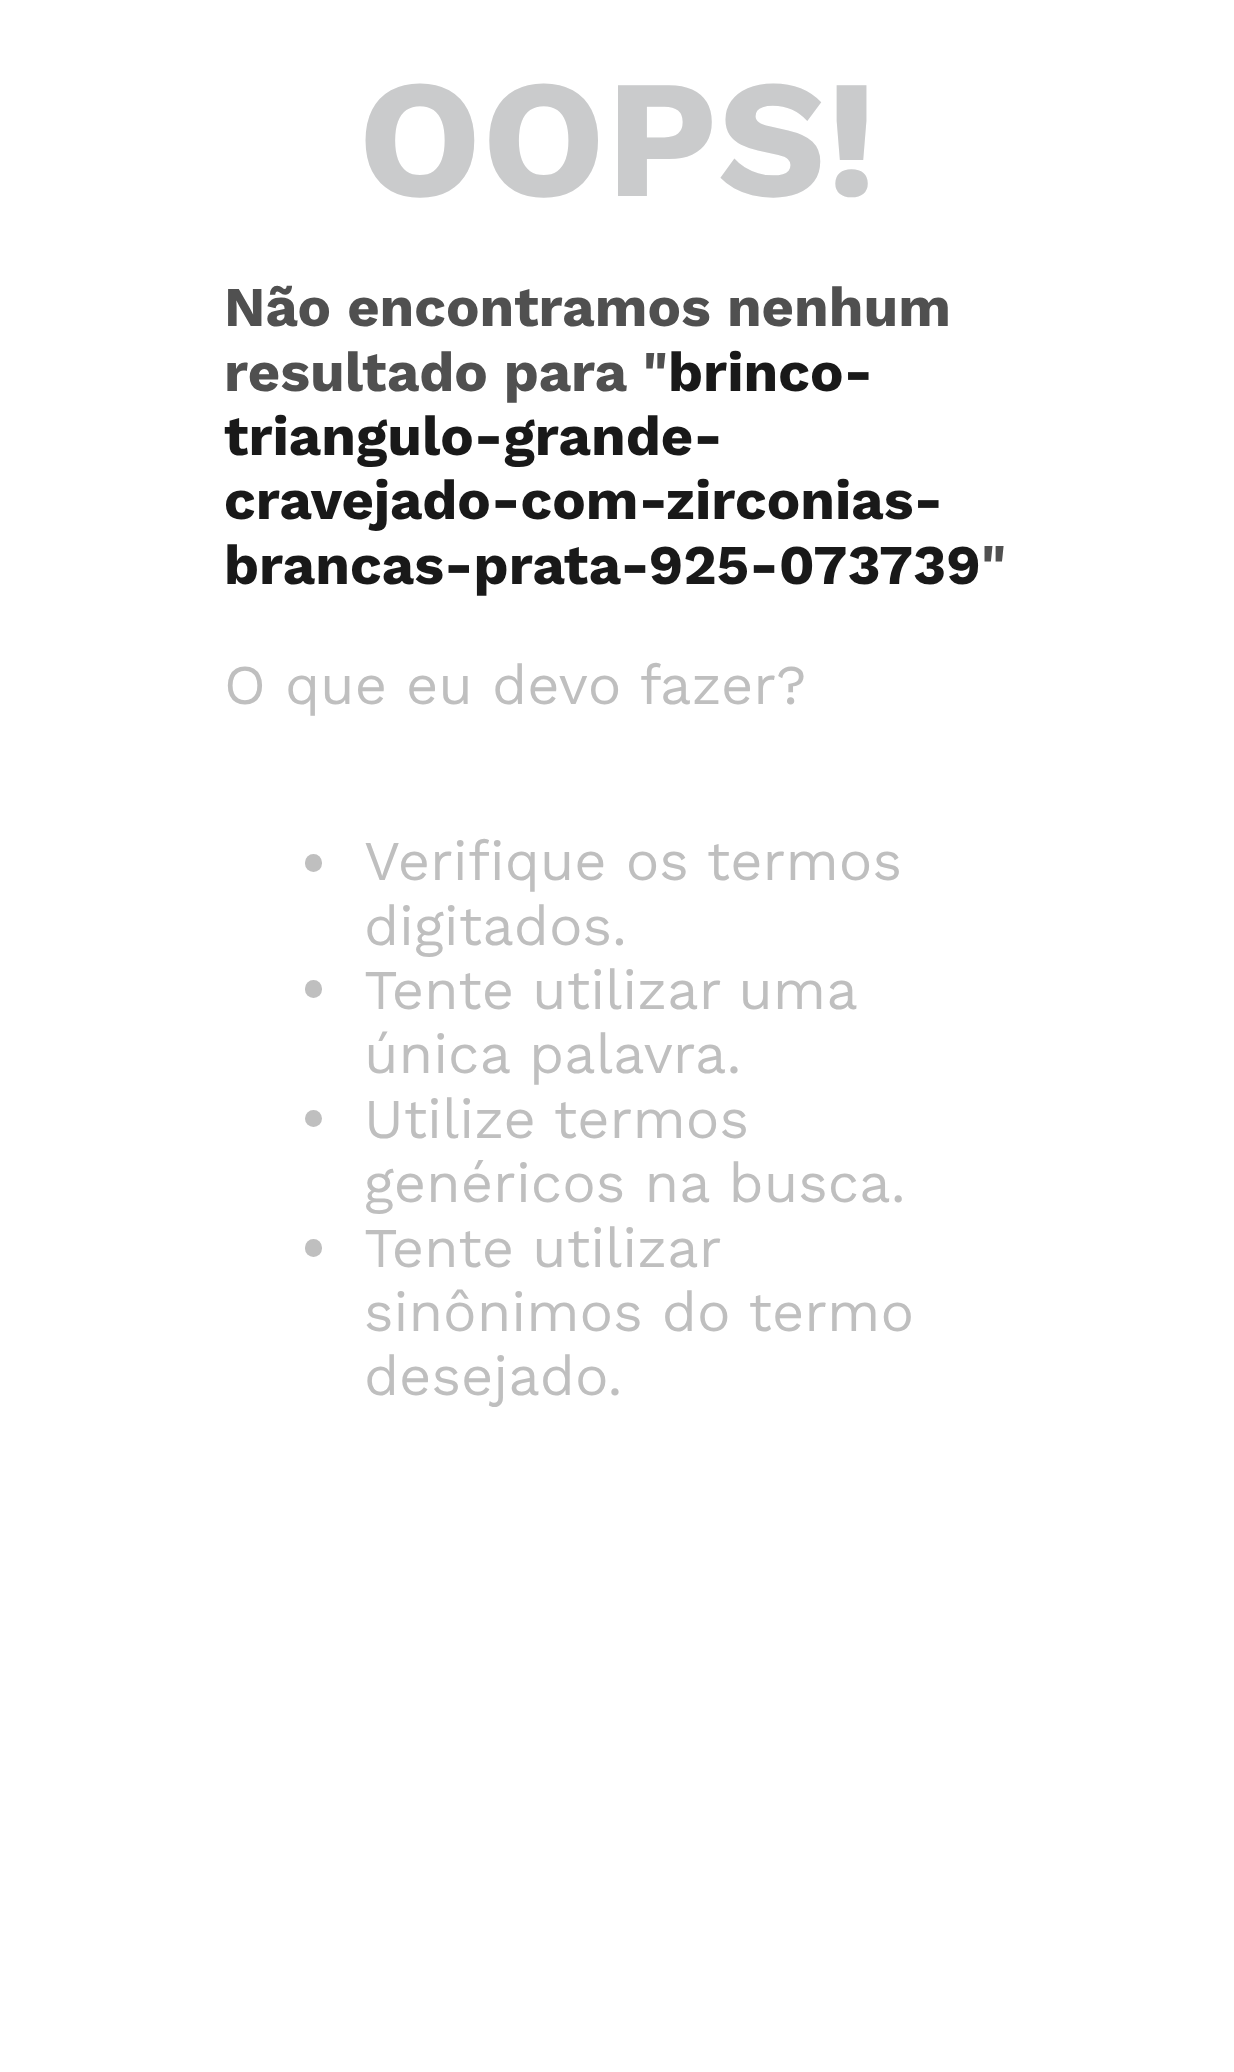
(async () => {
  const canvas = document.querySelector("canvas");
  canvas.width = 1234;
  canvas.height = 2072;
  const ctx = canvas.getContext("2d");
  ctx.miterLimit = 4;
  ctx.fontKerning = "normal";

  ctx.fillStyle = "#ffffff";
  ctx.fillRect(0, 0, 1234, 2072);
  ctx.fillStyle = "#bfbfbf";
  ctx.beginPath();
  ctx.roundRect(305, 854, 17, 18, 8.5);
  ctx.fill();
  ctx.beginPath();
  ctx.roundRect(305, 980, 17, 18, 8.5);
  ctx.fill();
  ctx.beginPath();
  ctx.arc(313.5, 1118.5, 8.5, 0, Math.PI * 2);
  ctx.fill();
  ctx.beginPath();
  ctx.roundRect(305, 1239, 17, 18, 8.5);
  ctx.fill();
  ctx.font = "bold 168px Work Sans";
  ctx.fillStyle = "#cacbcc";
  ctx.fillText("OOPS!", 358, 196);
  ctx.font = "bold 56px Work Sans";
  ctx.fillStyle = "#505050";
  ctx.fillText("Não encontramos nenhum", 224, 326);
  ctx.fillText("resultado para \"", 224, 391);
  ctx.fillStyle = "#191919";
  for (const [text, x, y] of [
    ["brinco-", 668, 391],
    ["triangulo-grande-", 224, 455],
    ["cravejado-com-zirconias-", 224, 519],
    ["brancas-prata-925-073739", 224, 584],
  ]) {
    ctx.fillText(text, x, y);
  }
  ctx.fillStyle = "#505050";
  ctx.fillText("\"", 981, 584);
  ctx.font = "56px Work Sans";
  ctx.fillStyle = "#bfbfbf";
  for (const [text, x, y] of [
    ["O que eu devo fazer?", 224, 704],
    ["Verifique os termos", 364, 880],
    ["digitados.", 364, 945],
  ]) {
    ctx.fillText(text, x, y);
  }
  ctx.wordSpacing = "-1px";
  ctx.fillText("Tente utilizar uma", 364, 1009);
  ctx.wordSpacing = "0px";
  for (const [text, x, y] of [
    ["única palavra.", 364, 1073],
    ["Utilize termos", 364, 1138],
    ["genéricos na busca.", 364, 1202],
  ]) {
    ctx.fillText(text, x, y);
  }
  ctx.wordSpacing = "-1px";
  ctx.fillText("Tente utilizar", 364, 1267);
  ctx.wordSpacing = "0px";
  ctx.fillText("sinônimos do termo", 364, 1331);
  ctx.fillText("desejado.", 364, 1395);
})();
